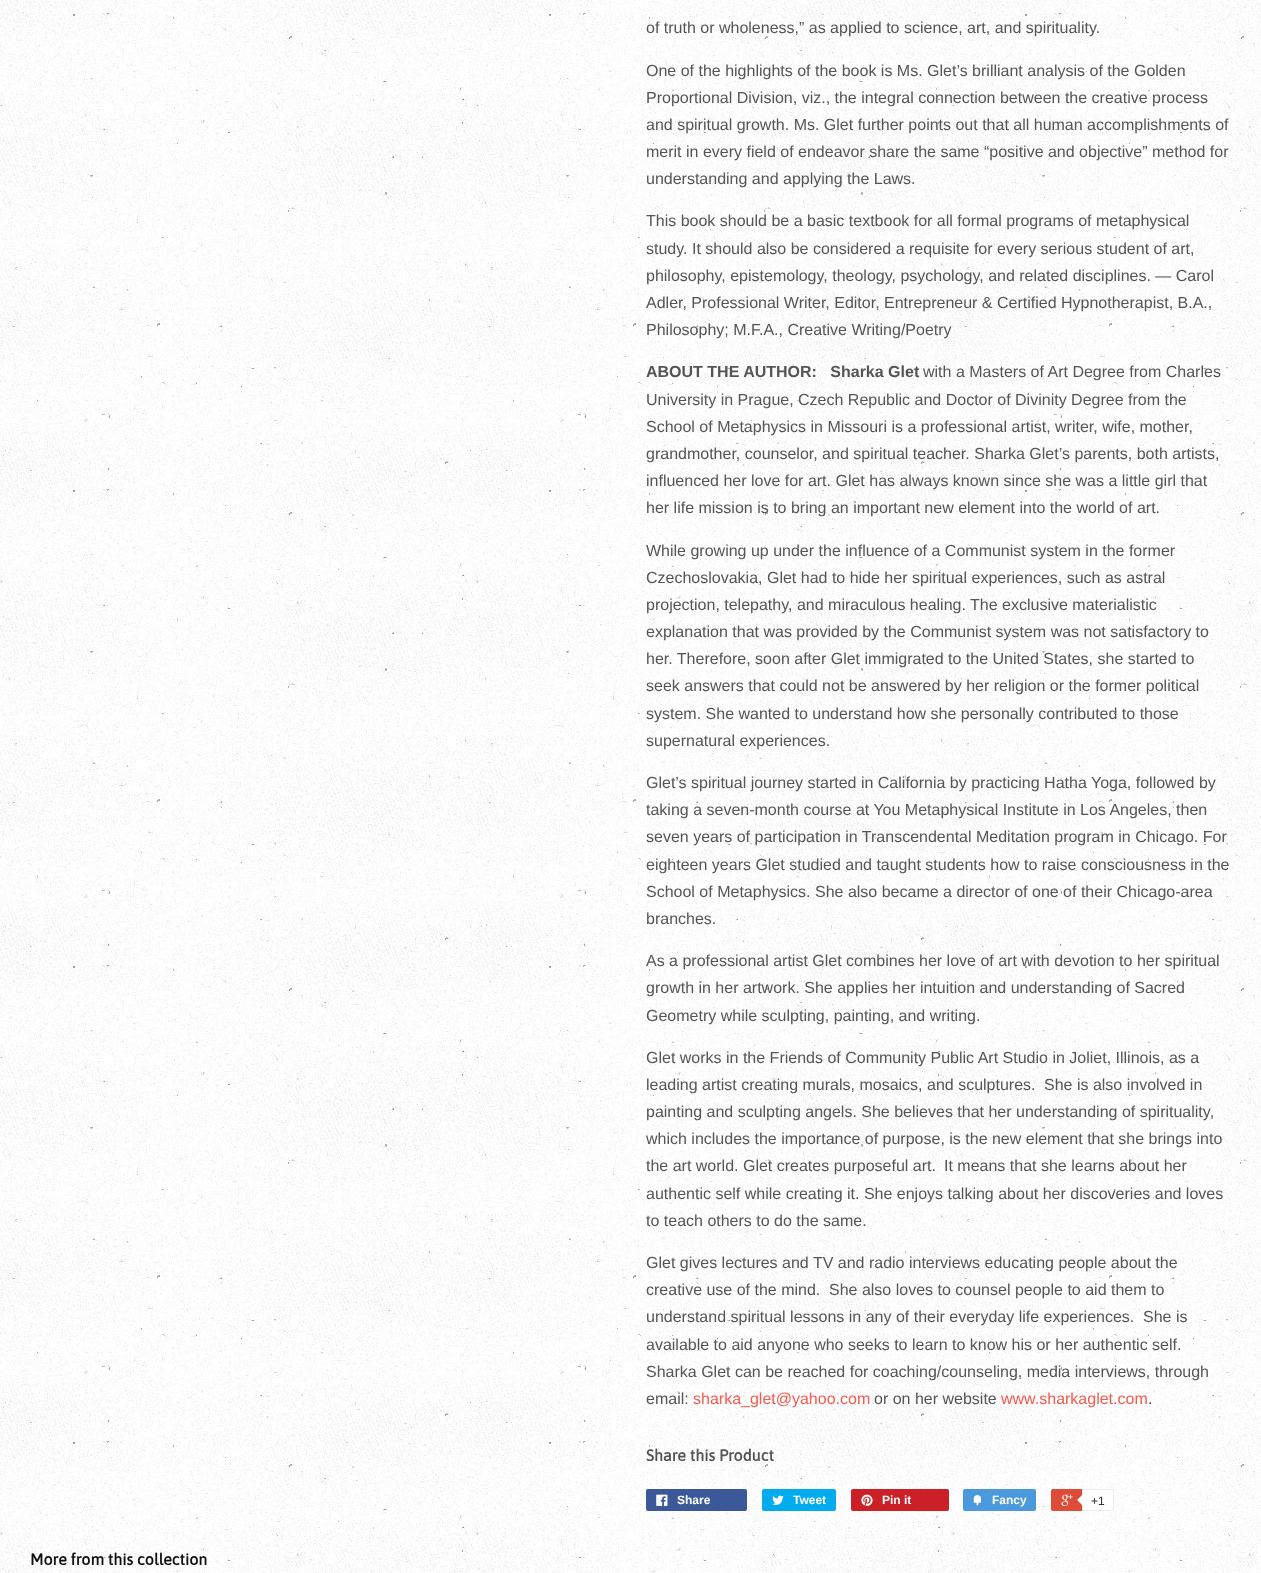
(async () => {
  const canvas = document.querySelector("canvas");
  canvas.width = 1261;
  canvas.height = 1573;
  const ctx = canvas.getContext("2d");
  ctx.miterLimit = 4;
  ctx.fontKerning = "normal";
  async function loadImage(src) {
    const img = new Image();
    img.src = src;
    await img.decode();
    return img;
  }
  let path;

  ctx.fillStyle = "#ffffff";
  ctx.fillRect(0, 0, 1261, 1573);
  ctx.drawImage(await loadImage("img/1.png"), 0, 0, 1261, 1573);
  ctx.fillStyle = "#3b5998";
  ctx.beginPath();
  ctx.roundRect(646, 1489, 101, 22, 2);
  ctx.fill();
  ctx.drawImage(await loadImage("img/2.png"), 656, 1494, 12, 12);
  ctx.fillStyle = "#00aced";
  ctx.beginPath();
  ctx.roundRect(762, 1489, 74, 22, 2);
  ctx.fill();
  ctx.drawImage(await loadImage("img/3.png"), 772, 1495, 12, 10);
  ctx.fillStyle = "#cb2027";
  ctx.beginPath();
  ctx.roundRect(851, 1489, 98, 22, 2);
  ctx.fill();
  ctx.drawImage(await loadImage("img/4.png"), 861, 1494, 12, 12);
  ctx.fillStyle = "#4999dc";
  ctx.beginPath();
  ctx.roundRect(963, 1489, 73, 22, 2);
  ctx.fill();
  ctx.drawImage(await loadImage("img/5.png"), 973, 1495, 9, 11);
  ctx.fillStyle = "#dd4b39";
  ctx.beginPath();
  ctx.roundRect(1051, 1489, 61, 22, 2);
  ctx.fill();
  ctx.drawImage(await loadImage("img/6.png"), 1061, 1494, 12, 12);
  ctx.fillStyle = "#ffffff";
  ctx.beginPath();
  ctx.roundRect(1082.5, 1489.5, 31, 21, [0, 1.5, 1.5, 0]);
  ctx.fill();
  ctx.strokeStyle = "#ececec";
  ctx.stroke();
  ctx.fillStyle = "#ececec";
  path = new Path2D("M1083 1494V1506L1077 1500Z");
  ctx.fill(path);
  ctx.fillStyle = "#ffffff";
  path = new Path2D("M1084 1494V1506L1078 1500Z");
  ctx.fill(path);
  ctx.font = "16px Liberation Sans";
  ctx.fillStyle = "#555555";
  for (const [text, x, y] of [
    ["of truth or wholeness,” as applied to science, art, and spirituality.", 646, 33],
    ["One of the highlights of the book is Ms. Glet’s brilliant analysis of the Golden", 646, 76],
    ["Proportional Division, viz., the integral connection between the creative process", 646, 103],
    ["and spiritual growth. Ms. Glet further points out that all human accomplishments of", 646, 130],
    ["merit in every field of endeavor share the same “positive and objective” method for", 646, 157],
    ["understanding and applying the Laws.", 646, 184],
    ["This book should be a basic textbook for all formal programs of metaphysical", 646, 226],
    ["study. It should also be considered a requisite for every serious student of art,", 646, 254],
    ["philosophy, epistemology, theology, psychology, and related disciplines. — Carol", 646, 281],
    ["Adler, Professional Writer, Editor, Entrepreneur & Certified Hypnotherapist, B.A.,", 646, 308],
    ["Philosophy; M.F.A., Creative Writing/Poetry", 646, 335],
  ]) {
    ctx.fillText(text, x, y);
  }
  ctx.font = "bold 16px Liberation Sans";
  ctx.fillText("ABOUT THE AUTHOR:   Sharka Glet", 646, 377);
  ctx.font = "16px Liberation Sans";
  for (const [text, x, y] of [
    ["with a Masters of Art Degree from Charles", 923, 377],
    ["University in Prague, Czech Republic and Doctor of Divinity Degree from the", 646, 405],
    ["School of Metaphysics in Missouri is a professional artist, writer, wife, mother,", 646, 432],
    ["grandmother, counselor, and spiritual teacher. Sharka Glet’s parents, both artists,", 646, 459],
    ["influenced her love for art. Glet has always known since she was a little girl that", 646, 486],
    ["her life mission is to bring an important new element into the world of art.", 646, 513],
    ["While growing up under the influence of a Communist system in the former", 646, 556],
    ["Czechoslovakia, Glet had to hide her spiritual experiences, such as astral", 646, 583],
    ["projection, telepathy, and miraculous healing. The exclusive materialistic", 646, 610],
    ["explanation that was provided by the Communist system was not satisfactory to", 646, 637],
    ["her. Therefore, soon after Glet immigrated to the United States, she started to", 646, 664],
    ["seek answers that could not be answered by her religion or the former political", 646, 691],
    ["system. She wanted to understand how she personally contributed to those", 646, 719],
    ["supernatural experiences.", 646, 746],
    ["Glet’s spiritual journey started in California by practicing Hatha Yoga, followed by", 646, 788],
    ["taking a seven-month course at You Metaphysical Institute in Los Angeles, then", 646, 815],
    ["seven years of participation in Transcendental Meditation program in Chicago. For", 646, 842],
    ["eighteen years Glet studied and taught students how to raise consciousness in the", 646, 870],
    ["School of Metaphysics. She also became a director of one of their Chicago-area", 646, 897],
    ["branches.", 646, 924],
    ["As a professional artist Glet combines her love of art with devotion to her spiritual", 646, 966],
    ["growth in her artwork. She applies her intuition and understanding of Sacred", 646, 993],
    ["Geometry while sculpting, painting, and writing.", 646, 1021],
    ["Glet works in the Friends of Community Public Art Studio in Joliet, Illinois, as a", 646, 1063],
    ["leading artist creating murals, mosaics, and sculptures.", 646, 1090],
    ["She is also involved in", 1044, 1090],
    ["painting and sculpting angels. She believes that her understanding of spirituality,", 646, 1117],
    ["which includes the importance of purpose, is the new element that she brings into", 646, 1144],
    ["the art world. Glet creates purposeful art.", 646, 1171],
    ["It means that she learns about her", 944, 1171],
    ["authentic self while creating it. She enjoys talking about her discoveries and loves", 646, 1199],
    ["to teach others to do the same.", 646, 1226],
    ["Glet gives lectures and TV and radio interviews educating people about the", 646, 1268],
    ["creative use of the mind.", 646, 1295],
    ["She also loves to counsel people to aid them to", 829, 1295],
    ["understand spiritual lessons in any of their everyday life experiences.", 646, 1322],
    ["She is", 1143, 1322],
    ["available to aid anyone who seeks to learn to know his or her authentic self.", 646, 1350],
    ["Sharka Glet can be reached for coaching/counseling, media interviews, through", 646, 1377],
    ["email:", 646, 1404],
  ]) {
    ctx.fillText(text, x, y);
  }
  ctx.fillStyle = "#f45b4f";
  ctx.fillText("sharka_glet@yahoo.com", 693, 1404);
  ctx.fillStyle = "#555555";
  ctx.fillText("or on her website", 874, 1404);
  ctx.fillStyle = "#f45b4f";
  ctx.fillText("www.sharkaglet.com", 1001, 1404);
  ctx.fillStyle = "#555555";
  ctx.fillText(".", 1148, 1404);
  ctx.font = "bold 16px Asap";
  ctx.fillText("Share this Product", 646, 1461);
  ctx.font = "bold 12px Liberation Sans";
  ctx.fillStyle = "#ffffff";
  for (const [text, x, y] of [
    ["Share", 677, 1504],
    ["Tweet", 793, 1504],
    ["Pin it", 882, 1504],
    ["Fancy", 992, 1504],
  ]) {
    ctx.fillText(text, x, y);
  }
  ctx.font = "12px Liberation Sans";
  ctx.fillStyle = "#333333";
  ctx.fillText("+1", 1091, 1505);
  ctx.font = "bold 16px Asap";
  ctx.fillStyle = "#111111";
  ctx.fillText("More from this collection", 30, 1565);
})();
